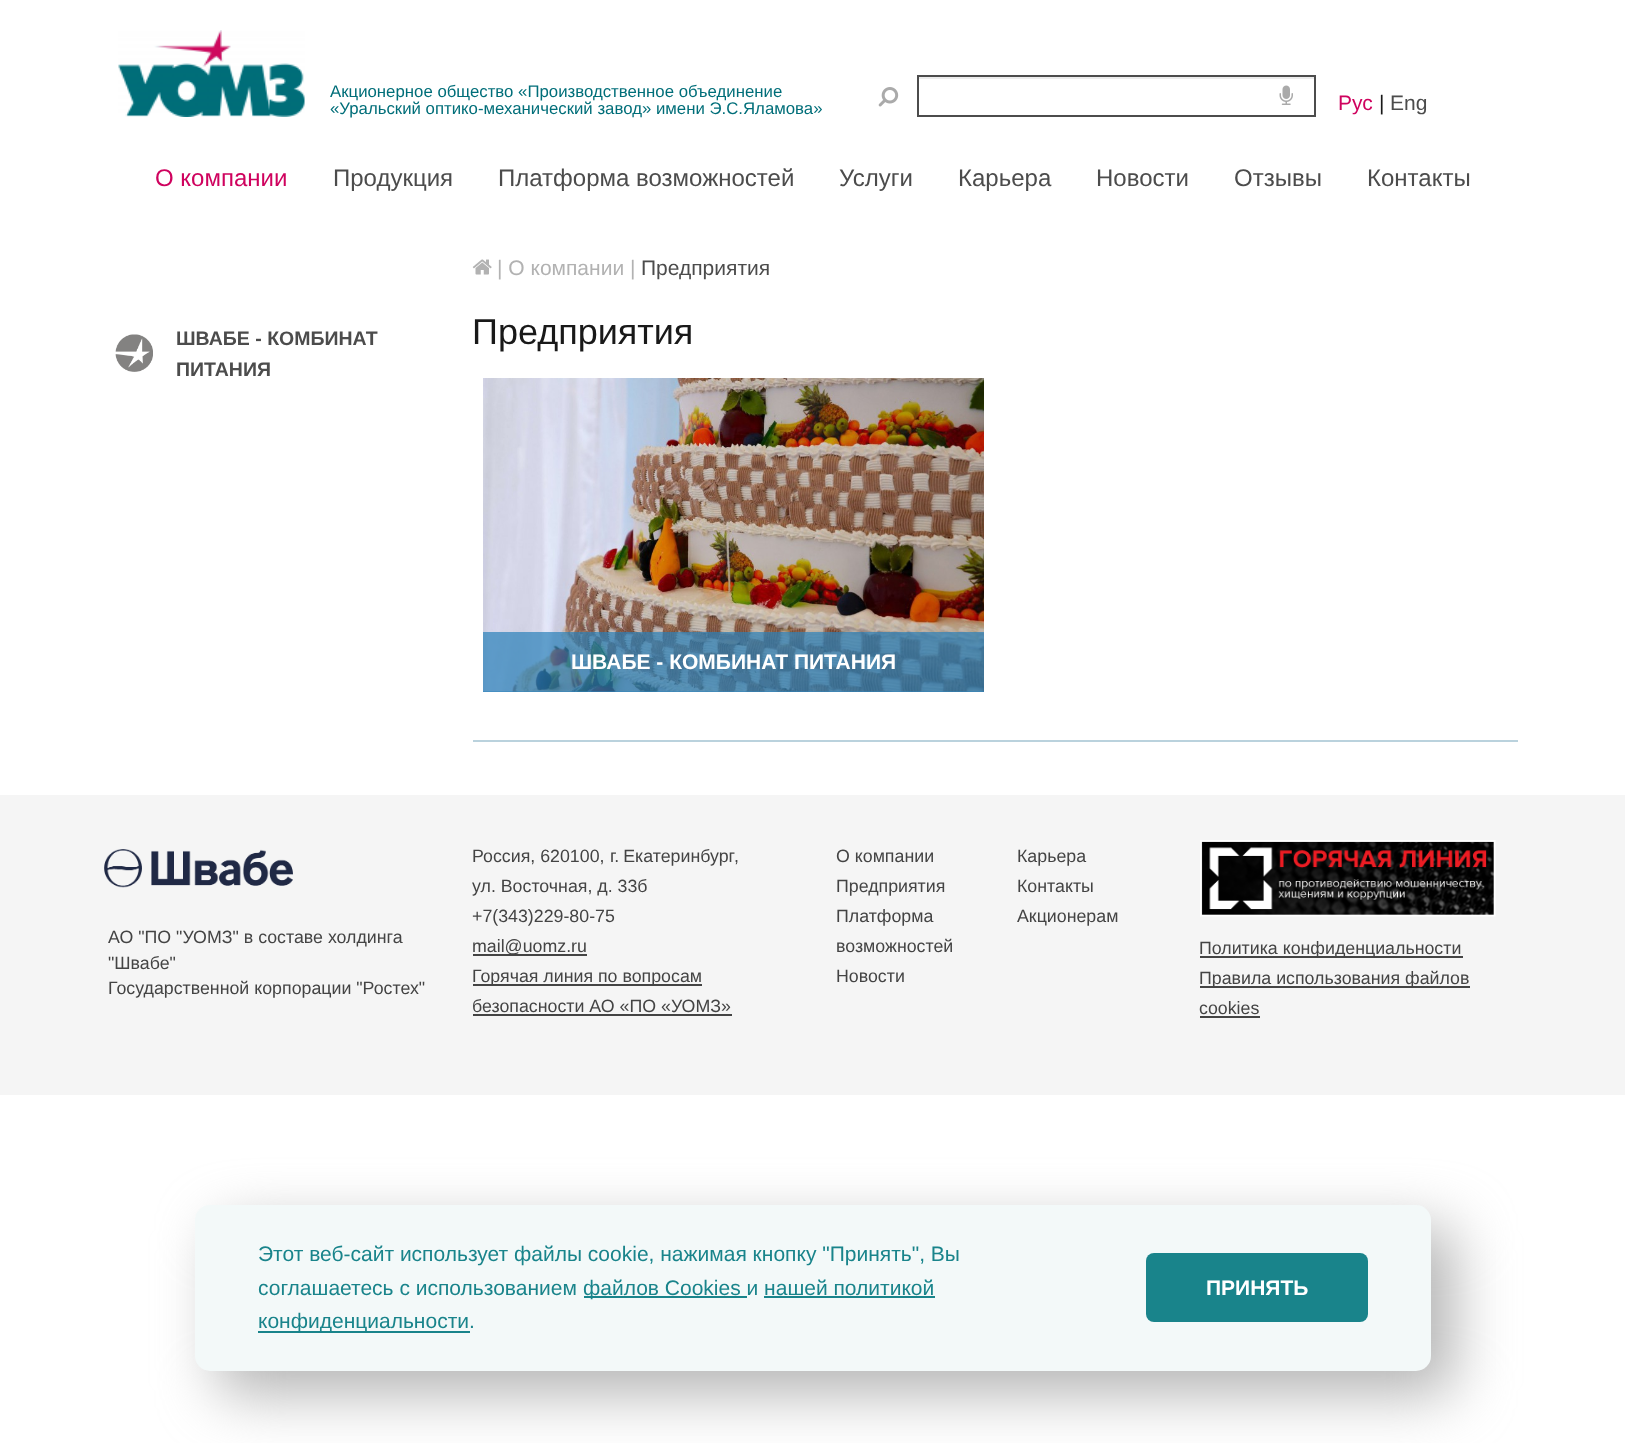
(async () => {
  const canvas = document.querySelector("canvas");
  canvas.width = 1625;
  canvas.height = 1443;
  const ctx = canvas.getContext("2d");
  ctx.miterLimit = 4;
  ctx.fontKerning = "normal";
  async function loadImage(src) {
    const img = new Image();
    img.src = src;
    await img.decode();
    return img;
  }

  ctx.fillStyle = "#ffffff";
  ctx.fillRect(0, 0, 1625, 1443);
  ctx.drawImage(await loadImage("img/1.png"), 118, 30, 187, 87);
  ctx.fillStyle = "#ececec";
  ctx.fillRect(918, 77, 396, 2);
  ctx.strokeStyle = "#4c4c4c";
  ctx.lineWidth = 2;
  ctx.strokeRect(918, 76, 397, 40);
  ctx.drawImage(await loadImage("img/2.png"), 878, 87, 21, 20);
  ctx.drawImage(await loadImage("img/3.png"), 1279, 85, 14, 20);
  ctx.drawImage(await loadImage("img/4.png"), 472, 259, 20, 16);
  ctx.drawImage(await loadImage("img/5.png"), 115, 334, 38, 38);
  ctx.fillStyle = "#4993c4";
  ctx.fillRect(483, 691, 501, 1);
  ctx.drawImage(await loadImage("img/6.png"), 483, 378, 501, 314);
  for (const [x, y, w, h, color] of [
    [483, 632, 501, 60, "rgba(41, 128, 185, 0.7)"],
    [473, 740, 1045, 2, "#bad2dd"],
    [0, 795, 1625, 300, "#f5f5f5"],
  ]) {
    ctx.fillStyle = color;
    ctx.fillRect(x, y, w, h);
  }
  ctx.drawImage(await loadImage("img/7.png"), 104, 849, 189, 39);
  for (const [x, y, w, h, color] of [
    [473, 954, 114, 2, "#444444"],
    [473, 984, 229, 2, "#444444"],
    [473, 1014, 259, 2, "#444444"],
  ]) {
    ctx.fillStyle = color;
    ctx.fillRect(x, y, w, h);
  }
  ctx.drawImage(await loadImage("img/8.png"), 1200, 840, 296, 77);
  for (const [x, y, w, h, color] of [
    [1200, 956, 263, 2, "#444444"],
    [1200, 986, 270, 2, "#444444"],
    [1200, 1016, 60, 2, "#444444"],
  ]) {
    ctx.fillStyle = color;
    ctx.fillRect(x, y, w, h);
  }
  ctx.fillStyle = "#b4b4b4";
  ctx.filter = "blur(29px)";
  ctx.beginPath();
  ctx.roundRect(218, 1227, 1236, 167, 15);
  ctx.fill();
  ctx.filter = "none";
  ctx.fillStyle = "#f3f9f9";
  ctx.beginPath();
  ctx.roundRect(195, 1205, 1236, 166, 15);
  ctx.fill();
  for (const [x, y, w, h, color] of [
    [584, 1296, 163, 2, "#19848b"],
    [764, 1296, 171, 2, "#19848b"],
    [258, 1331, 212, 2, "#19848b"],
  ]) {
    ctx.fillStyle = color;
    ctx.fillRect(x, y, w, h);
  }
  ctx.beginPath();
  ctx.roundRect(1146, 1253, 222, 69, 8);
  ctx.fill();
  ctx.font = "16.8px Liberation Sans";
  ctx.fillStyle = "#006e79";
  ctx.fillText("Акционерное общество «Производственное объединение", 330, 97);
  ctx.fillText("«Уральский оптико-механический завод» имени Э.С.Яламова»", 330, 114);
  ctx.font = "21px Liberation Sans";
  ctx.fillStyle = "#cf025e";
  ctx.fillText("Рус", 1338, 110);
  ctx.fillStyle = "#191919";
  ctx.fillText("|", 1379, 110);
  ctx.fillStyle = "#4c4c4c";
  ctx.fillText("Eng", 1390, 110);
  ctx.font = "24px Liberation Sans";
  ctx.fillStyle = "#cf025e";
  ctx.fillText("О компании", 155, 186);
  ctx.fillStyle = "#4c4c4c";
  for (const [text, x, y] of [
    ["Продукция", 333, 186],
    ["Платформа возможностей", 498, 186],
    ["Услуги", 839, 186],
    ["Карьера", 958, 186],
    ["Новости", 1096, 186],
    ["Отзывы", 1234, 186],
    ["Контакты", 1367, 186],
  ]) {
    ctx.fillText(text, x, y);
  }
  ctx.font = "21px Liberation Sans";
  ctx.fillStyle = "#b2b2b2";
  ctx.fillText("| О компании |", 497, 275);
  ctx.fillStyle = "#4c4c4c";
  ctx.fillText("Предприятия", 641, 275);
  ctx.font = "bold 19.5px Liberation Sans";
  ctx.fillText("ШВАБЕ - КОМБИНАТ", 176, 345);
  ctx.fillText("ПИТАНИЯ", 176, 376);
  ctx.font = "36px Liberation Sans";
  ctx.fillStyle = "#191919";
  ctx.fillText("Предприятия", 472, 344);
  ctx.font = "bold 21px Liberation Sans";
  ctx.fillStyle = "#ffffff";
  ctx.fillText("ШВАБЕ - КОМБИНАТ ПИТАНИЯ", 571, 669);
  ctx.font = "17.8px Liberation Sans";
  ctx.fillStyle = "#444444";
  for (const [text, x, y] of [
    ["АО \"ПО \"УОМЗ\" в составе холдинга", 108, 943],
    ["\"Швабе\"", 108, 969],
    ["Государственной корпорации \"Ростех\"", 108, 994],
    ["Россия, 620100,", 472, 862],
  ]) {
    ctx.fillText(text, x, y);
  }
  ctx.wordSpacing = "-1px";
  ctx.fillText("г. Екатеринбург", 610, 862);
  ctx.wordSpacing = "0px";
  for (const [text, x, y] of [
    [",", 734, 862],
    ["ул. Восточная, д. 33б", 472, 892],
    ["+7(343)229-80-75", 472, 922],
    ["mail@uomz.ru", 472, 952],
    ["Горячая линия по вопросам", 472, 982],
    ["безопасности АО «ПО «УОМЗ»", 472, 1012],
    ["О компании", 836, 862],
    ["Предприятия", 836, 892],
    ["Платформа", 836, 922],
    ["возможностей", 836, 952],
    ["Новости", 836, 982],
    ["Карьера", 1017, 862],
    ["Контакты", 1017, 892],
    ["Акционерам", 1017, 922],
    ["Политика конфиденциальности", 1199, 954],
    ["Правила использования файлов", 1199, 984],
    ["cookies", 1199, 1014],
  ]) {
    ctx.fillText(text, x, y);
  }
  ctx.font = "21px Liberation Sans";
  ctx.fillStyle = "#19848b";
  for (const [text, x, y] of [
    ["Этот веб-сайт использует файлы cookie, нажимая кнопку \"Принять\", Вы", 258, 1261],
    ["соглашаетесь с использованием", 258, 1295],
    ["файлов Cookies и нашей политикой", 583, 1295],
    ["конфиденциальности.", 258, 1328],
  ]) {
    ctx.fillText(text, x, y);
  }
  ctx.font = "bold 21px Liberation Sans";
  ctx.fillStyle = "#ffffff";
  ctx.fillText("ПРИНЯТЬ", 1206, 1295);
})();
